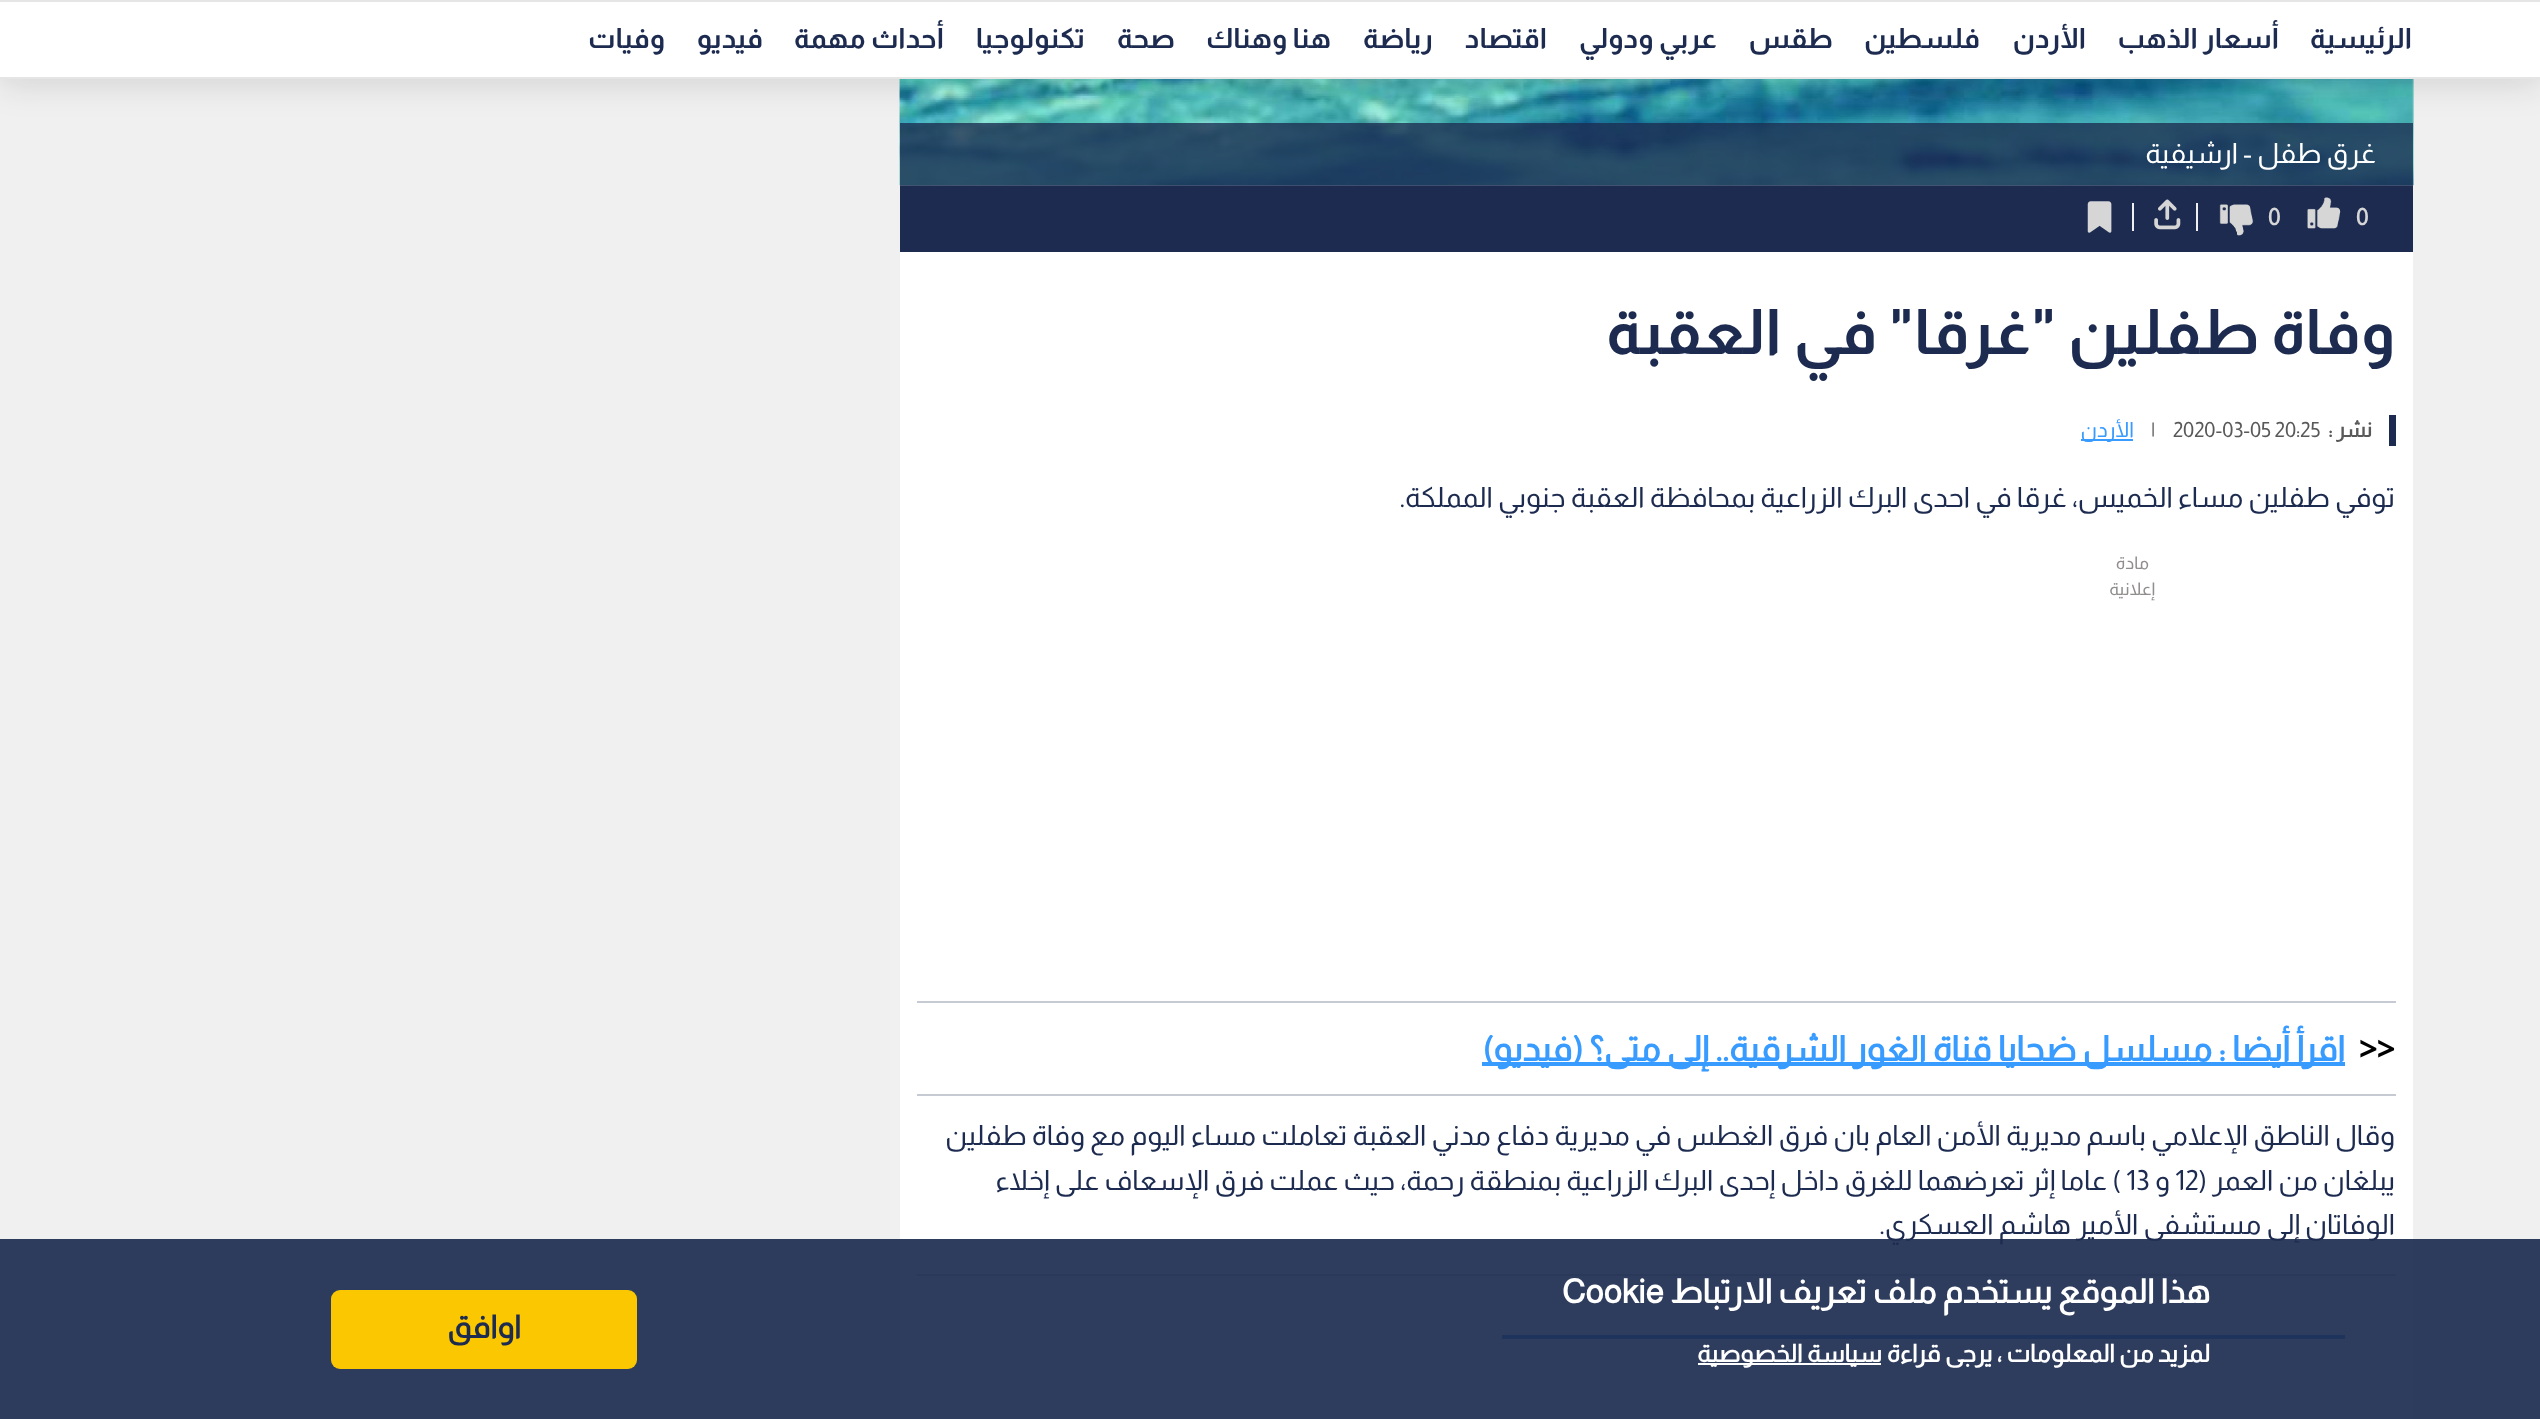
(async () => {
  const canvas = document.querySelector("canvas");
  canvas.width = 2540;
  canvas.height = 1419;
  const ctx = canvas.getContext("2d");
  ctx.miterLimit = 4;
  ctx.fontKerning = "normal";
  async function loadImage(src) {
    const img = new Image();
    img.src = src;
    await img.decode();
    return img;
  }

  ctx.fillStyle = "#f0f0f0";
  ctx.fillRect(0, 0, 2540, 1419);
  ctx.fillStyle = "#ececec";
  ctx.fillRect(900, 79, 1513, 107);
  ctx.drawImage(await loadImage("img/1.png"), 899, 79, 1515, 107);
  ctx.fillStyle = "rgba(28, 43, 79, 0.78)";
  ctx.fillRect(900, 123, 1513, 63);
  ctx.fillStyle = "rgba(20, 20, 20, 0.15)";
  ctx.filter = "blur(17.5px)";
  ctx.beginPath();
  ctx.rect(0, 4, 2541, 78);
  ctx.fill();
  ctx.filter = "none";
  for (const [x, y, w, h, color] of [
    [0, 2, 2540, 75, "#ffffff"],
    [0, 0, 2540, 2, "#e5e5e5"],
    [0, 77, 2540, 2, "#e5e5e5"],
    [900, 252, 1513, 1167, "#ffffff"],
    [900, 186, 1513, 66, "#1c2b4f"],
  ]) {
    ctx.fillStyle = color;
    ctx.fillRect(x, y, w, h);
  }
  ctx.drawImage(await loadImage("img/2.png"), 2307, 197, 34, 32);
  ctx.drawImage(await loadImage("img/3.png"), 2219, 204, 35, 32);
  ctx.fillStyle = "#f0f0f0";
  ctx.fillRect(2196, 203, 2, 28);
  ctx.drawImage(await loadImage("img/4.png"), 2154, 199, 27, 31);
  ctx.fillRect(2132, 203, 2, 28);
  ctx.drawImage(await loadImage("img/5.png"), 2087, 201, 25, 32);
  for (const [x, y, w, h, color] of [
    [2389, 415, 7, 31, "#1c2b4f"],
    [2081, 439, 52, 2, "#389bff"],
    [917, 1001, 1479, 2, "#c6cad3"],
    [1482, 1062, 863, 4, "#389bff"],
    [917, 1094, 1479, 2, "#c6cad3"],
    [917, 1274, 1479, 2, "#c6cad3"],
    [1502, 1335, 843, 4, "#389bff"],
  ]) {
    ctx.fillStyle = color;
    ctx.fillRect(x, y, w, h);
  }
  ctx.direction = "rtl";
  ctx.font = "bold 28px Almarai";
  ctx.fillStyle = "#1c2b4f";
  for (const [text, x, y] of [
    ["الرئيسية", 2412, 48],
    ["أسعار الذهب", 2279, 48],
    ["الأردن", 2086, 48],
    ["فلسطين", 1980, 48],
    ["طقس", 1833, 48],
    ["عربي ودولي", 1717, 48],
    ["اقتصاد", 1547, 48],
    ["رياضة", 1433, 48],
    ["هنا وهناك", 1331, 48],
    ["صحة", 1175, 48],
    ["تكنولوجيا", 1085, 48],
    ["أحداث مهمة", 944, 48],
    ["فيديو", 763, 48],
    ["وفيات", 665, 48],
  ]) {
    ctx.fillText(text, x, y);
  }
  ctx.font = "28px Almarai";
  ctx.fillStyle = "#ffffff";
  ctx.fillText("غرق طفل - ارشيفية", 2376, 163);
  ctx.direction = "ltr";
  ctx.font = "bold 23px 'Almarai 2'";
  ctx.fillStyle = "#d6d6d6";
  ctx.fillText("0", 2356, 225);
  ctx.fillText("0", 2268, 225);
  ctx.direction = "rtl";
  ctx.font = "bold 63px Almarai";
  ctx.fillStyle = "#1c2b4f";
  ctx.fillText("وفاة طفلين \"غرقا\" في العقبة", 2395, 354);
  ctx.font = "bold 21px 'Almarai 2'";
  ctx.fillStyle = "#595959";
  ctx.fillText("نشر :", 2372, 437);
  ctx.direction = "ltr";
  ctx.font = "21px Almarai";
  ctx.fillText("2020-03-05 20:25", 2173, 437);
  ctx.fillText("|", 2151, 437);
  ctx.direction = "rtl";
  ctx.fillStyle = "#389bff";
  ctx.fillText("الأردن", 2134, 437);
  ctx.font = "28px Almarai";
  ctx.fillStyle = "#1c2b4f";
  ctx.fillText("توفي طفلين مساء الخميس، غرقا في احدى البرك الزراعية بمحافظة العقبة جنوبي المملكة.", 2395, 507);
  ctx.font = "17.5px Almarai";
  ctx.fillStyle = "#918d8d";
  ctx.fillText("مادة", 2149, 569);
  ctx.fillText("إعلانية", 2155, 595);
  ctx.direction = "ltr";
  ctx.font = "bold 35px 'Almarai 2'";
  ctx.fillStyle = "#000000";
  ctx.fillText(">>", 2359, 1061);
  ctx.direction = "rtl";
  ctx.fillStyle = "#389bff";
  ctx.fillText("اقرأ أيضا : مسلسل ضحايا قناة الغور الشرقية.. إلى متى؟ (فيديو)", 2345, 1061);
  ctx.font = "28px Almarai";
  ctx.fillStyle = "#1c2b4f";
  ctx.fillText("وقال الناطق الإعلامي باسم مديرية الأمن العام بان فرق الغطس في مديرية دفاع مدني العقبة تعاملت مساء اليوم مع وفاة طفلين", 2395, 1145);
  ctx.fillText("يبلغان من العمر (", 2395, 1190);
  ctx.direction = "ltr";
  ctx.fillText("12", 2175, 1190);
  ctx.direction = "rtl";
  ctx.fillText("و", 2170, 1190);
  ctx.direction = "ltr";
  ctx.fillText("13", 2126, 1190);
  ctx.direction = "rtl";
  ctx.fillText(") عاما إثر تعرضهما للغرق داخل إحدى البرك الزراعية بمنطقة رحمة، حيث عملت فرق الإسعاف على إخلاء", 2121, 1190);
  ctx.fillText("الوفاتان إلى مستشفى الأمير هاشم العسكري.", 2395, 1234);
  ctx.fillStyle = "rgba(28, 43, 79, 0.92)";
  ctx.fillRect(0, 1239, 2540, 180);
  ctx.fillStyle = "#fbc700";
  ctx.beginPath();
  ctx.roundRect(331, 1290, 306, 79, 9);
  ctx.fill();
  ctx.font = "bold 31.5px 'Almarai 2'";
  ctx.fillStyle = "#1c2b4f";
  ctx.fillText("اوافق", 521, 1338);
  ctx.fillStyle = "#ffffff";
  ctx.fillRect(1698, 1363, 183, 2);
  ctx.font = "bold 24.5px 'Almarai 2'";
  ctx.fillText("سياسة الخصوصية", 1882, 1362);
  ctx.fillText("لمزيد من المعلومات ، يرجى قراءة", 2210, 1362);
  ctx.font = "bold 33.25px 'Almarai 2'";
  ctx.fillText("هذا الموقع يستخدم ملف تعريف الارتباط", 2210, 1303);
  ctx.direction = "ltr";
  ctx.fillText("Cookie", 1562, 1303);
})();
